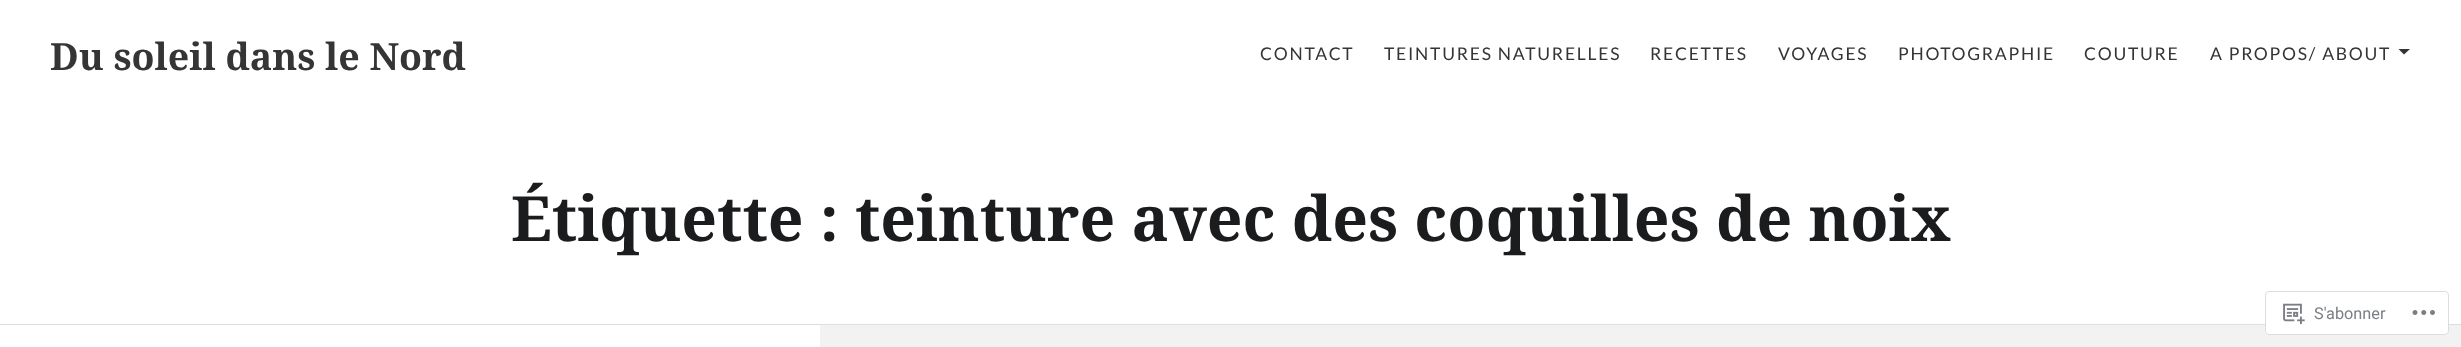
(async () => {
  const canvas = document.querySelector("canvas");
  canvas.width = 2461;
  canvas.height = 347;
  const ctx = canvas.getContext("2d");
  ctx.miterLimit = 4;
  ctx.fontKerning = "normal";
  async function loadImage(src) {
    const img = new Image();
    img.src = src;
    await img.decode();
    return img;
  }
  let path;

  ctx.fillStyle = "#ffffff";
  ctx.fillRect(0, 0, 2461, 347);
  ctx.fillStyle = "#353535";
  path = new Path2D("M2398.5 49H2410L2404 54.5Z");
  ctx.fill(path);
  ctx.fillStyle = "#f2f2f2";
  ctx.fillRect(820, 325, 1641, 22);
  ctx.fillStyle = "#d9dfe5";
  ctx.fillRect(0, 324, 2461, 1);
  ctx.fillStyle = "rgba(255, 255, 255, 0.98)";
  ctx.beginPath();
  ctx.roundRect(2265, 291, 184, 44, 4);
  ctx.fill();
  ctx.beginPath();
  ctx.roundRect(2265.5, 291.5, 183, 43, 3.5);
  ctx.strokeStyle = "rgba(220, 220, 222, 0.98)";
  ctx.stroke();
  ctx.drawImage(await loadImage("img/1.png"), 2283, 303, 22, 22);
  ctx.drawImage(await loadImage("img/2.png"), 2412, 310, 23, 5);
  ctx.font = "bold 37.5px Noto Serif";
  ctx.fillStyle = "#353535";
  ctx.fillText("Du soleil dans le Nord", 50, 70);
  ctx.letterSpacing = "1.75px";
  ctx.font = "17.5px Lato";
  for (const [text, x, y] of [
    ["CONTACT", 1260, 60],
    ["TEINTURES NATURELLES", 1384, 60],
    ["RECETTES", 1650, 60],
    ["VOYAGES", 1778, 60],
    ["PHOTOGRAPHIE", 1898, 60],
    ["COUTURE", 2084, 60],
    ["A PROPOS/ ABOUT", 2210, 60],
  ]) {
    ctx.fillText(text, x, y);
  }
  ctx.letterSpacing = "0px";
  ctx.font = "bold 62.5px Noto Serif";
  ctx.fillStyle = "#1a1c1e";
  ctx.fillText("Étiquette : teinture avec des coquilles de noix", 511, 241);
  ctx.font = "16.25px Roboto";
  ctx.fillStyle = "#7b7f85";
  ctx.fillText("S'abonner", 2314, 319);
})();
